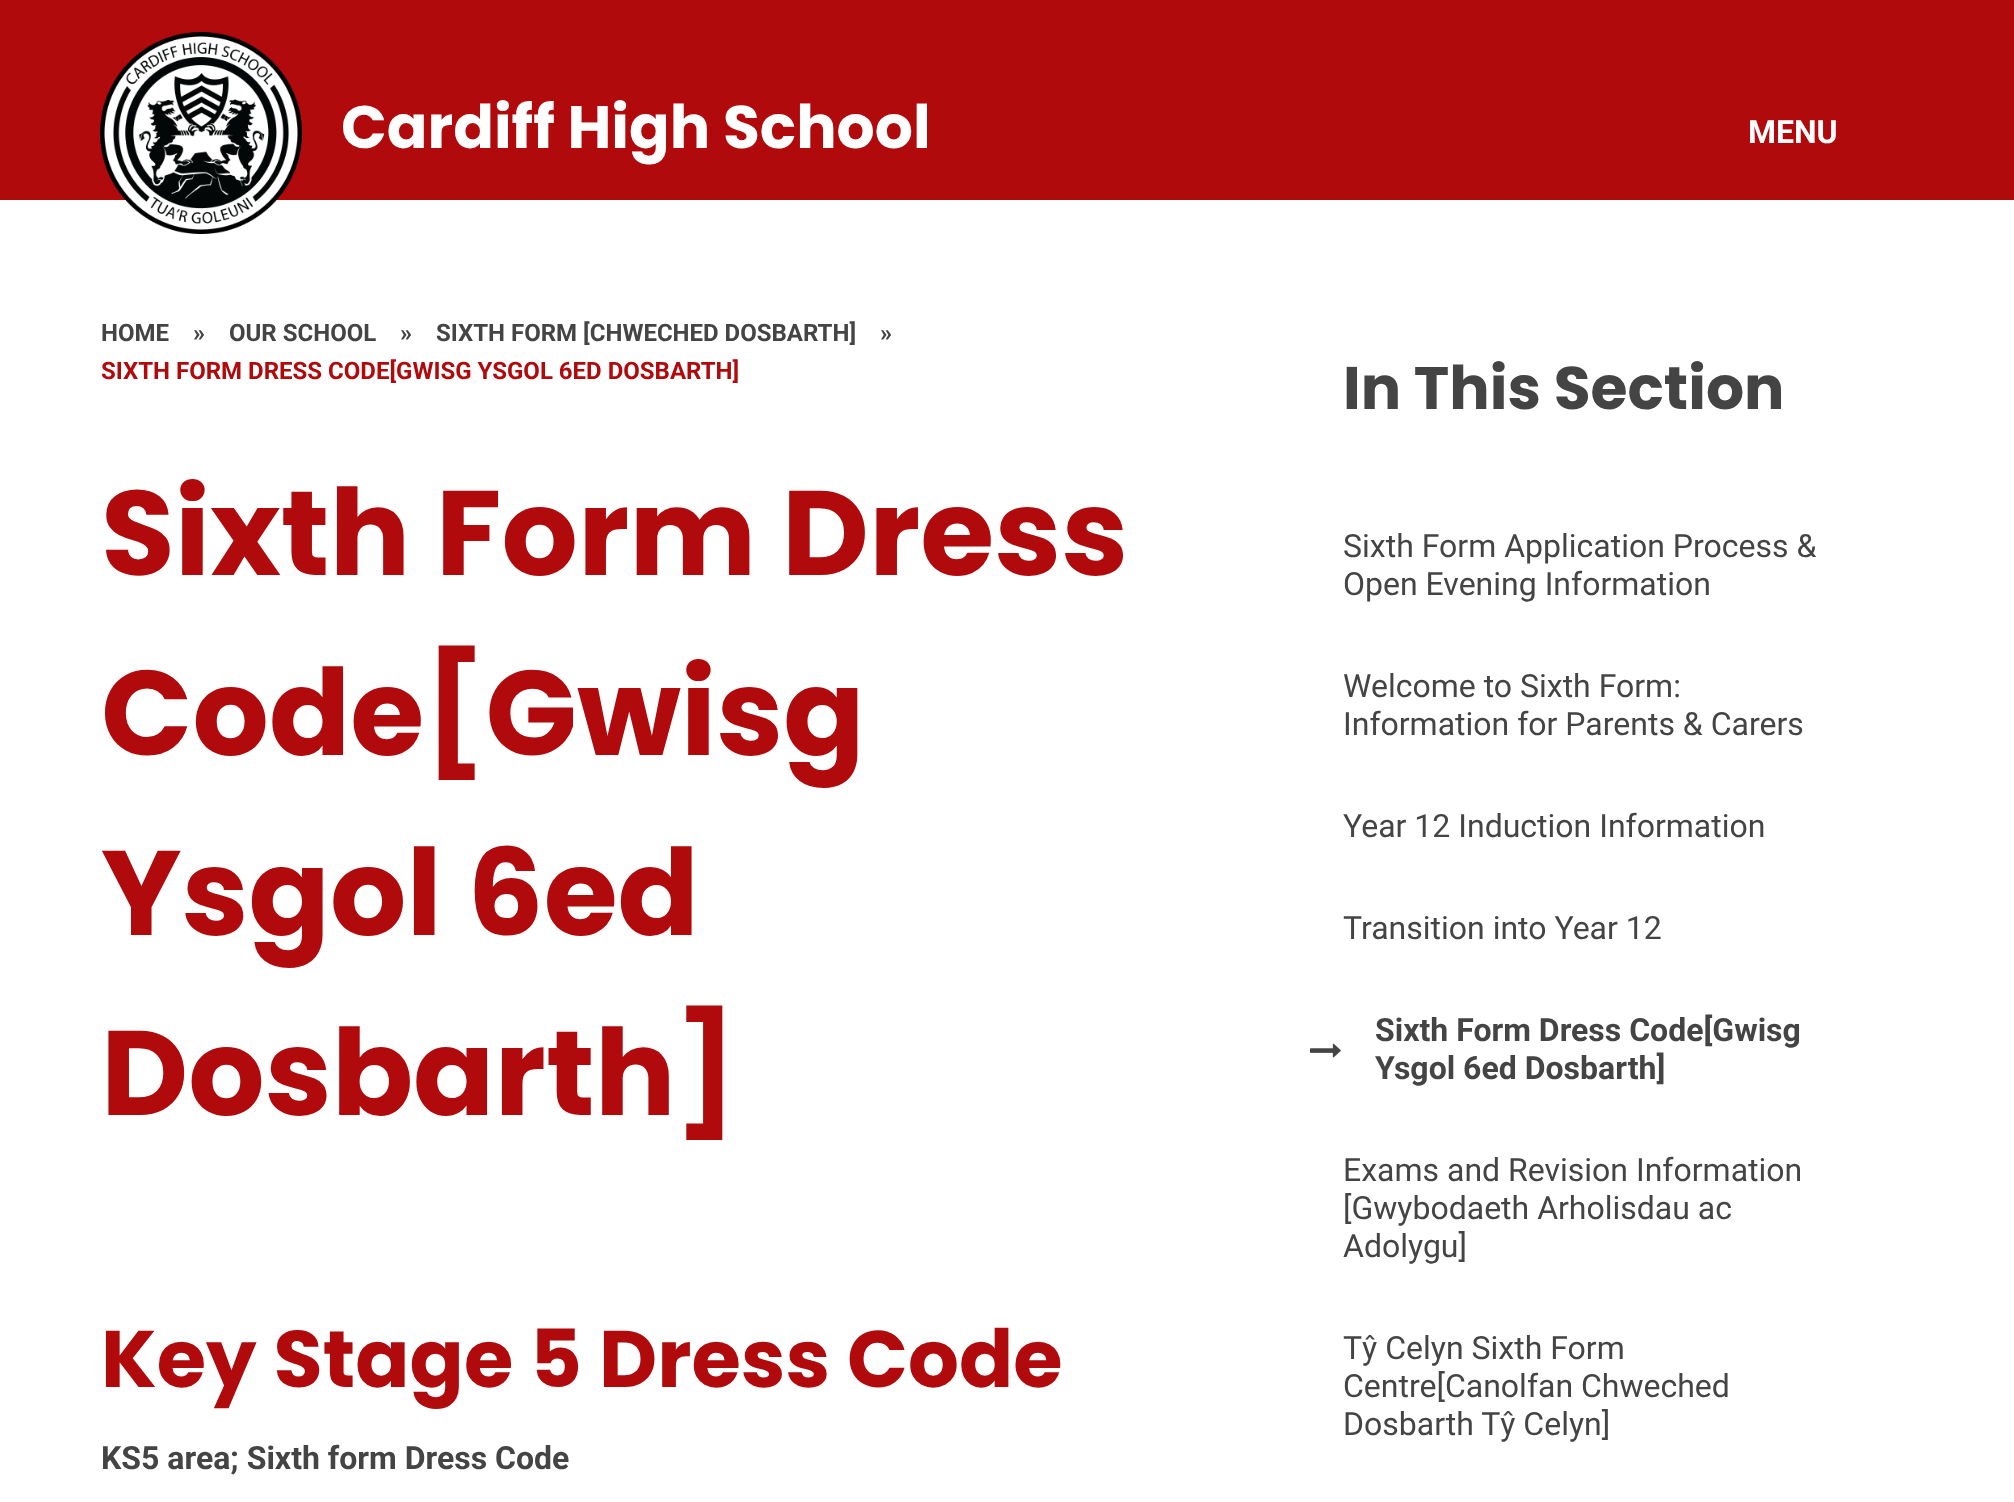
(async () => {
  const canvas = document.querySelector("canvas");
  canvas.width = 2014;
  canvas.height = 1502;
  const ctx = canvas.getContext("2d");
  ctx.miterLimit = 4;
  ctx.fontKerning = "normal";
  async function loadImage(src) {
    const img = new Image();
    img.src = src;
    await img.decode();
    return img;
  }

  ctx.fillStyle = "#ffffff";
  ctx.fillRect(0, 0, 2014, 1502);
  ctx.fillStyle = "#b00a0d";
  ctx.fillRect(0, 0, 2014, 200);
  ctx.drawImage(await loadImage("img/1.png"), 100, 32, 202, 202);
  ctx.drawImage(await loadImage("img/2.png"), 1310, 1043, 31, 15);
  ctx.font = "bold 60px Poppins";
  ctx.fillStyle = "#ffffff";
  ctx.fillText("Cardiff High School", 341, 148);
  ctx.font = "bold 32px Roboto";
  ctx.fillText("MENU", 1748, 143);
  ctx.font = "bold 24px Roboto";
  ctx.fillStyle = "#444444";
  for (const [text, x, y] of [
    ["HOME", 101, 341],
    ["»", 193, 341],
    ["OUR SCHOOL", 229, 341],
    ["»", 400, 341],
    ["SIXTH FORM [CHWECHED DOSBARTH]", 436, 341],
    ["»", 880, 341],
  ]) {
    ctx.fillText(text, x, y);
  }
  ctx.fillStyle = "#b00a0d";
  ctx.fillText("SIXTH FORM DRESS CODE[GWISG YSGOL 6ED DOSBARTH]", 101, 379);
  ctx.font = "bold 120px Poppins";
  for (const [text, x, y] of [
    ["Sixth Form Dress", 101, 575],
    ["Code[Gwisg", 101, 755],
    ["Ysgol 6ed", 101, 935],
    ["Dosbarth]", 101, 1115],
  ]) {
    ctx.fillText(text, x, y);
  }
  ctx.font = "bold 80px Poppins";
  ctx.fillText("Key Stage 5 Dress Code", 101, 1387);
  ctx.font = "bold 32px Roboto";
  ctx.fillStyle = "#444444";
  ctx.fillText("KS5 area; Sixth form Dress Code", 101, 1469);
  ctx.font = "bold 60px Poppins";
  ctx.fillText("In This Section", 1343, 409);
  ctx.font = "32px Roboto";
  for (const [text, x, y] of [
    ["Sixth Form Application Process &", 1343, 557],
    ["Open Evening Information", 1343, 595],
    ["Welcome to Sixth Form:", 1343, 697],
    ["Information for Parents & Carers", 1343, 735],
    ["Year 12 Induction Information", 1343, 837],
    ["Transition into Year 12", 1343, 939],
  ]) {
    ctx.fillText(text, x, y);
  }
  ctx.font = "bold 32px Roboto";
  ctx.fillText("Sixth Form Dress Code[Gwisg", 1375, 1041);
  ctx.fillText("Ysgol 6ed Dosbarth]", 1375, 1079);
  ctx.font = "32px Roboto";
  for (const [text, x, y] of [
    ["Exams and Revision Information", 1343, 1181],
    ["[Gwybodaeth Arholisdau ac", 1343, 1219],
    ["Adolygu]", 1343, 1257],
    ["Tŷ Celyn Sixth Form", 1343, 1359],
    ["Centre[Canolfan Chweched", 1343, 1397],
    ["Dosbarth Tŷ Celyn]", 1343, 1435],
  ]) {
    ctx.fillText(text, x, y);
  }
})();
